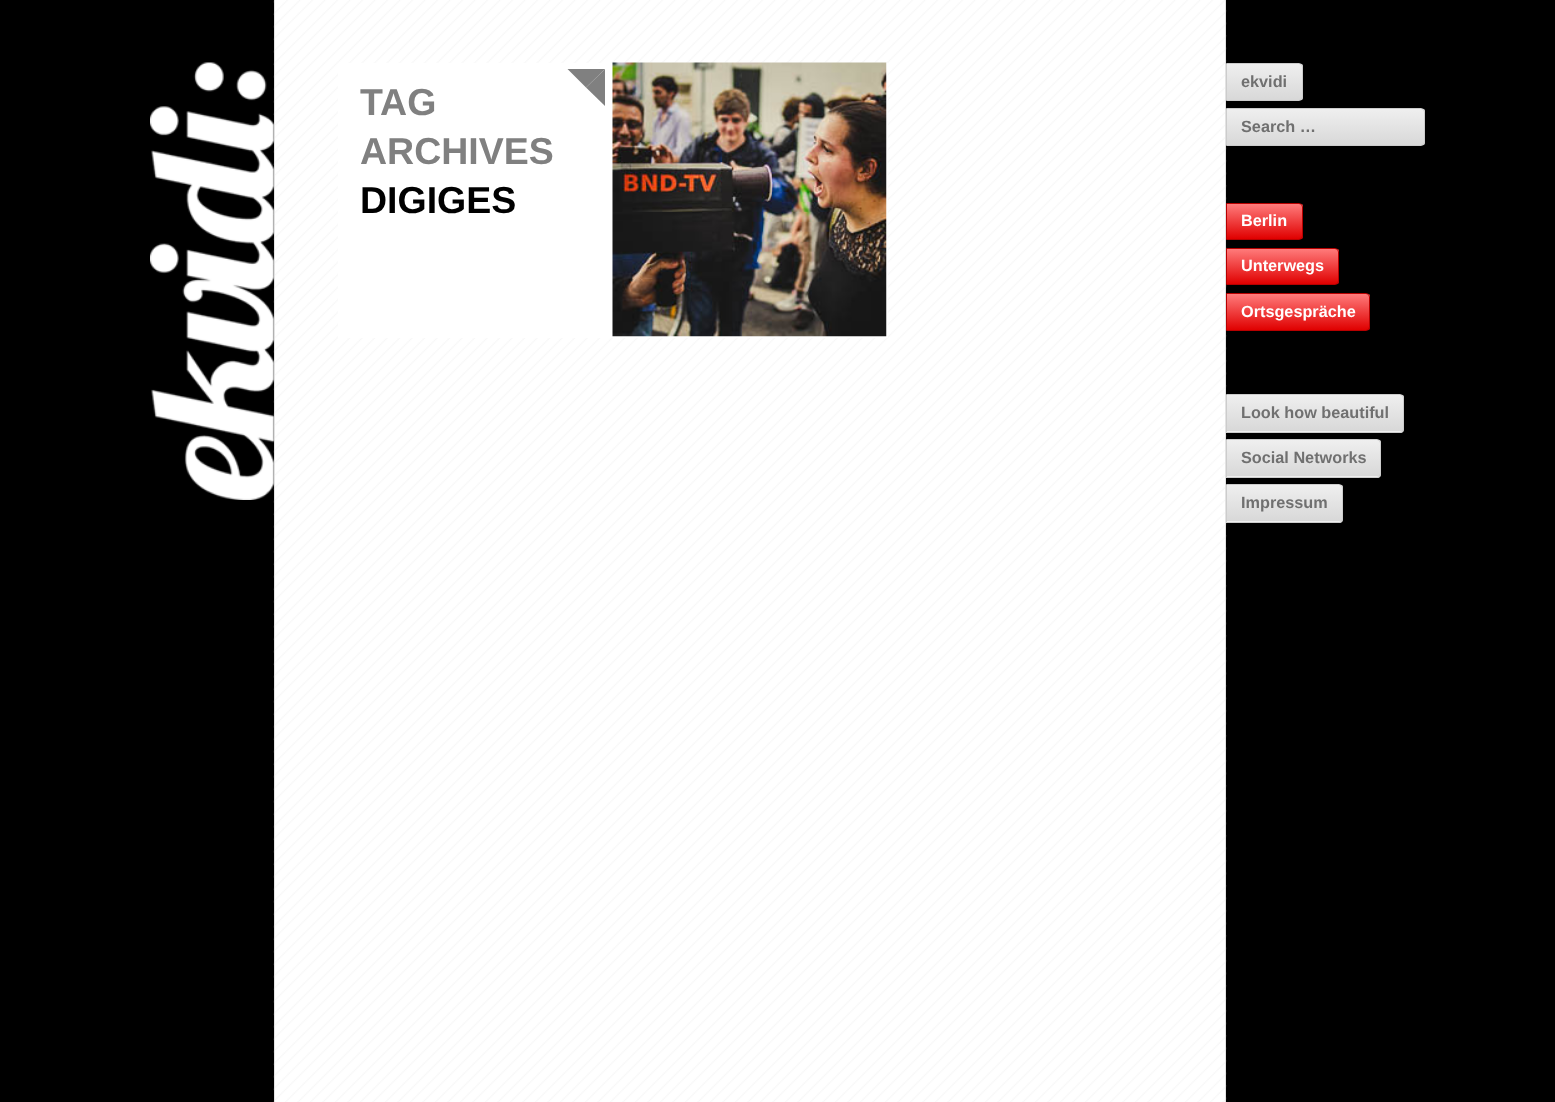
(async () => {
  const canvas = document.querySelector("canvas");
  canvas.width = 1555;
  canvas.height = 1102;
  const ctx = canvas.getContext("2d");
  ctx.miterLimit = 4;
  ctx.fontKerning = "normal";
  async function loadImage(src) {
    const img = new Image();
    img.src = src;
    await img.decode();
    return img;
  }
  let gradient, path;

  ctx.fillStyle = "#000000";
  ctx.fillRect(0, 0, 1555, 1102);
  ctx.drawImage(await loadImage("img/1.png"), 150, 62, 124, 438);
  ctx.fillStyle = "#ffffff";
  ctx.fillRect(275, 0, 950, 1102);
  ctx.drawImage(await loadImage("img/2.png"), 273, 0, 954, 1102);
  for (const [x, y, w, h, color] of [
    [1225, 0, 1, 1102, "#e3e3e3"],
    [274, 0, 1, 1102, "#e3e3e3"],
    [338, 63, 550, 275, "#ffffff"],
  ]) {
    ctx.fillStyle = color;
    ctx.fillRect(x, y, w, h);
  }
  ctx.fillStyle = "#808080";
  path = new Path2D("M567.5 69H605L586 87.5Z");
  ctx.fill(path);
  path = new Path2D("M605 69V106L586 87.5Z");
  ctx.fill(path);
  ctx.drawImage(await loadImage("img/3.png"), 612, 62, 275, 275);
  ctx.save();
  ctx.beginPath();
  ctx.roundRect(1226, 63, 77, 38, [0, 4, 4, 0]);
  ctx.clip();
  gradient = ctx.createLinearGradient(1228, 64, 1228, 100);
  gradient.addColorStop(0, "#efefef");
  gradient.addColorStop(1, "#d8d8d8");
  ctx.fillStyle = gradient;
  ctx.fillRect(1227, 64, 76, 36);
  ctx.restore();
  ctx.beginPath();
  ctx.roundRect(1226.5, 63.5, 76, 37, [0, 3.5, 3.5, 0]);
  ctx.strokeStyle = "#cccccc";
  ctx.stroke();
  ctx.save();
  ctx.beginPath();
  ctx.roundRect(1226, 108, 199, 38, [0, 4, 4, 0]);
  ctx.clip();
  gradient = ctx.createLinearGradient(1228, 109, 1228, 145);
  gradient.addColorStop(0, "#efefef");
  gradient.addColorStop(1, "#d8d8d8");
  ctx.fillStyle = gradient;
  ctx.fillRect(1227, 109, 198, 36);
  ctx.restore();
  ctx.beginPath();
  ctx.roundRect(1226.5, 108.5, 198, 37, [0, 3.5, 3.5, 0]);
  ctx.stroke();
  ctx.save();
  ctx.beginPath();
  ctx.roundRect(1226, 203, 77, 37, [0, 4, 4, 0]);
  ctx.clip();
  gradient = ctx.createLinearGradient(1228, 204, 1228, 239);
  gradient.addColorStop(0, "#ff7b7b");
  gradient.addColorStop(1, "#e00000");
  ctx.fillStyle = gradient;
  ctx.fillRect(1227, 204, 76, 35);
  ctx.restore();
  ctx.beginPath();
  ctx.roundRect(1226.5, 203.5, 76, 36, [0, 3.5, 3.5, 0]);
  ctx.strokeStyle = "#b70000";
  ctx.stroke();
  ctx.save();
  ctx.beginPath();
  ctx.roundRect(1226, 248, 113, 37, [0, 4, 4, 0]);
  ctx.clip();
  gradient = ctx.createLinearGradient(1228, 249, 1228, 284);
  gradient.addColorStop(0, "#ff7b7b");
  gradient.addColorStop(1, "#e00000");
  ctx.fillStyle = gradient;
  ctx.fillRect(1227, 249, 112, 35);
  ctx.restore();
  ctx.beginPath();
  ctx.roundRect(1226.5, 248.5, 112, 36, [0, 3.5, 3.5, 0]);
  ctx.stroke();
  ctx.save();
  ctx.beginPath();
  ctx.roundRect(1226, 293, 144, 38, [0, 4, 4, 0]);
  ctx.clip();
  gradient = ctx.createLinearGradient(1228, 294, 1228, 330);
  gradient.addColorStop(0, "#ff7b7b");
  gradient.addColorStop(1, "#e00000");
  ctx.fillStyle = gradient;
  ctx.fillRect(1227, 294, 143, 36);
  ctx.restore();
  ctx.beginPath();
  ctx.roundRect(1226.5, 293.5, 143, 37, [0, 3.5, 3.5, 0]);
  ctx.stroke();
  ctx.save();
  ctx.beginPath();
  ctx.roundRect(1226, 394, 178, 39, [0, 4, 4, 0]);
  ctx.clip();
  gradient = ctx.createLinearGradient(1228, 395, 1228, 431);
  gradient.addColorStop(0, "#efefef");
  gradient.addColorStop(1, "#d8d8d8");
  ctx.fillStyle = gradient;
  ctx.fillRect(1227, 395, 177, 36);
  gradient = ctx.createLinearGradient(1228, 431, 1228, 468);
  gradient.addColorStop(0, "#efefef");
  gradient.addColorStop(1, "#d8d8d8");
  ctx.fillStyle = gradient;
  ctx.fillRect(1226, 431, 178, 2);
  ctx.restore();
  ctx.beginPath();
  ctx.roundRect(1226.5, 394.5, 177, 38, [0, 3.5, 3.5, 0]);
  ctx.strokeStyle = "#cccccc";
  ctx.stroke();
  ctx.save();
  ctx.beginPath();
  ctx.roundRect(1226, 439, 155, 39, [0, 4, 4, 0]);
  ctx.clip();
  gradient = ctx.createLinearGradient(1228, 440, 1228, 476);
  gradient.addColorStop(0, "#efefef");
  gradient.addColorStop(1, "#d8d8d8");
  ctx.fillStyle = gradient;
  ctx.fillRect(1227, 440, 154, 36);
  gradient = ctx.createLinearGradient(1228, 476, 1228, 513);
  gradient.addColorStop(0, "#efefef");
  gradient.addColorStop(1, "#d8d8d8");
  ctx.fillStyle = gradient;
  ctx.fillRect(1226, 476, 155, 2);
  ctx.restore();
  ctx.beginPath();
  ctx.roundRect(1226.5, 439.5, 154, 38, [0, 3.5, 3.5, 0]);
  ctx.stroke();
  ctx.save();
  ctx.beginPath();
  ctx.roundRect(1226, 484, 117, 39, [0, 4, 4, 0]);
  ctx.clip();
  gradient = ctx.createLinearGradient(1228, 485, 1228, 521);
  gradient.addColorStop(0, "#efefef");
  gradient.addColorStop(1, "#d8d8d8");
  ctx.fillStyle = gradient;
  ctx.fillRect(1227, 485, 116, 36);
  gradient = ctx.createLinearGradient(1228, 521, 1228, 558);
  gradient.addColorStop(0, "#efefef");
  gradient.addColorStop(1, "#d8d8d8");
  ctx.fillStyle = gradient;
  ctx.fillRect(1226, 521, 117, 2);
  ctx.restore();
  ctx.beginPath();
  ctx.roundRect(1226.5, 484.5, 116, 38, [0, 3.5, 3.5, 0]);
  ctx.stroke();
  ctx.font = "bold 37.5px Liberation Sans";
  ctx.fillText("TAG", 360, 115);
  ctx.fillText("ARCHIVES", 360, 164);
  ctx.fillStyle = "#000000";
  ctx.fillText("DIGIGES", 360, 213);
  ctx.font = "bold 16.25px Liberation Sans";
  ctx.fillStyle = "#707070";
  ctx.fillText("ekvidi", 1241, 87);
  ctx.fillText("Search …", 1241, 132);
  ctx.fillStyle = "#ffffff";
  for (const [text, x, y] of [
    ["Berlin", 1241, 226],
    ["Unterwegs", 1241, 271],
    ["Ortsgespräche", 1241, 317],
  ]) {
    ctx.fillText(text, x, y);
  }
  ctx.fillStyle = "#707070";
  for (const [text, x, y] of [
    ["Look how beautiful", 1241, 418],
    ["Social Networks", 1241, 463],
    ["Impressum", 1241, 508],
  ]) {
    ctx.fillText(text, x, y);
  }
})();
